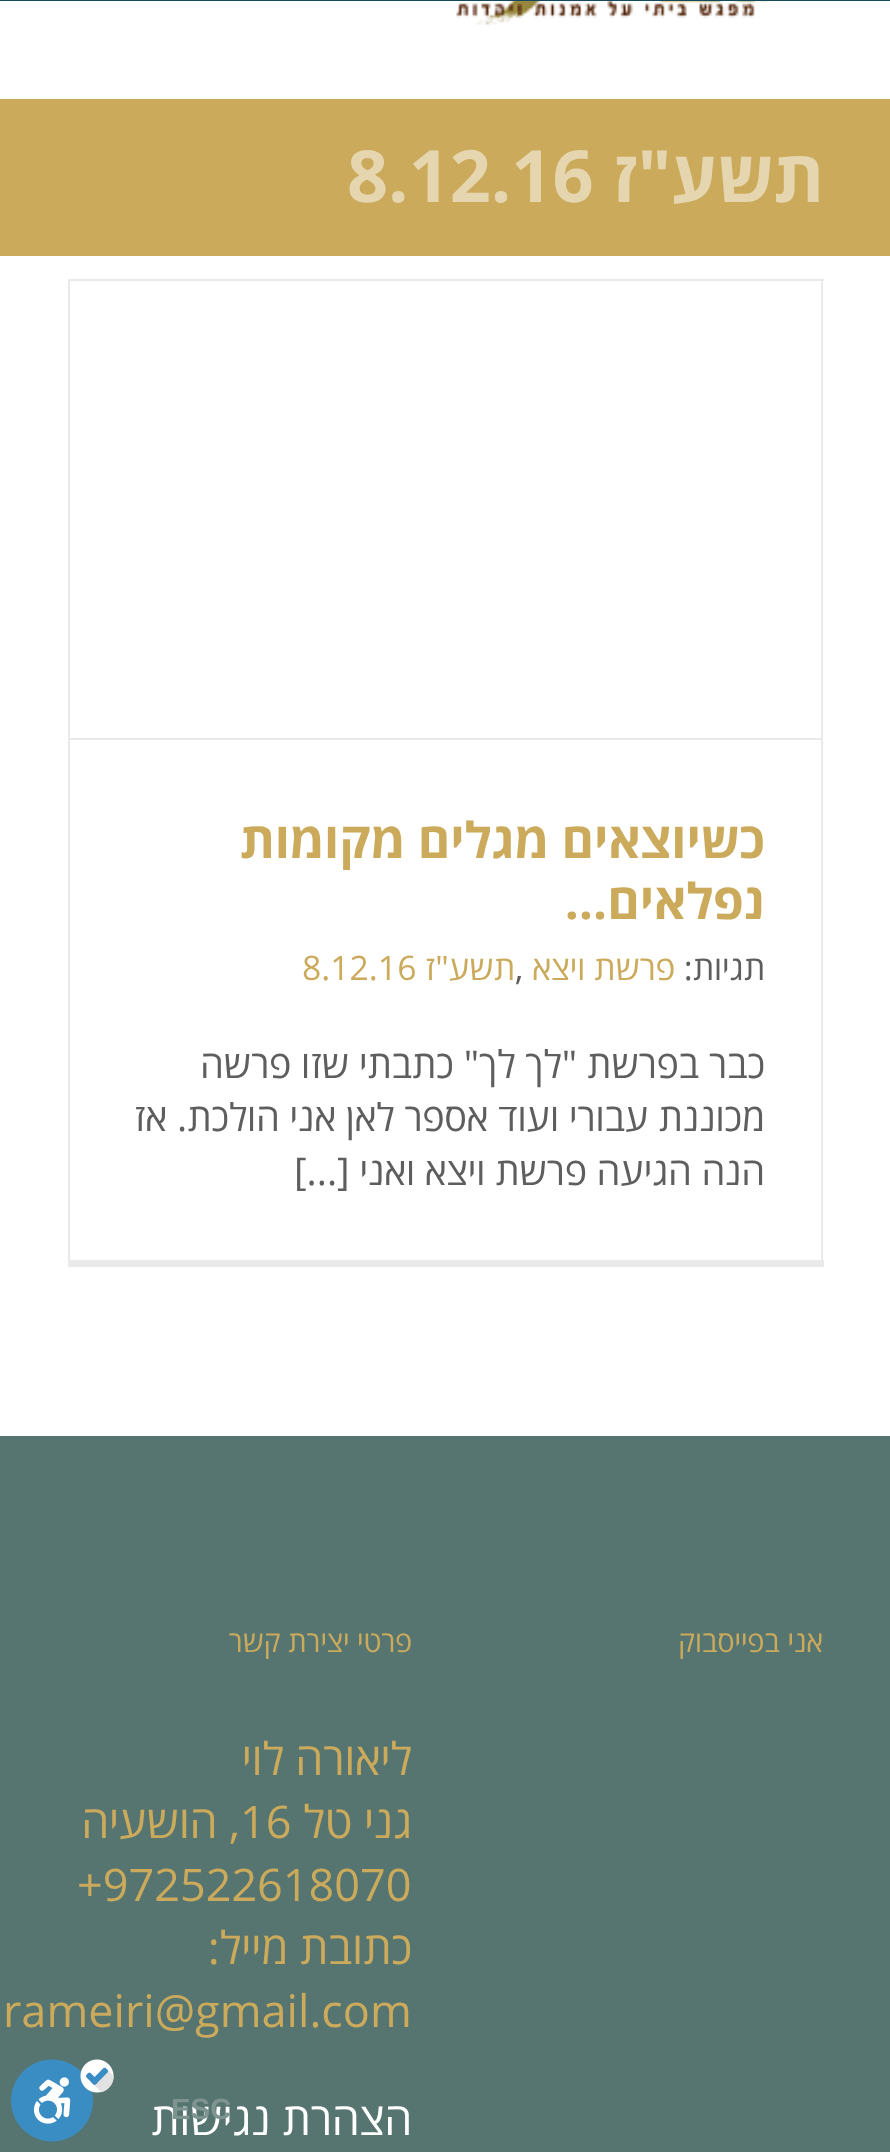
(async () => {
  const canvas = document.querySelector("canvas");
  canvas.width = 890;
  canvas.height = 2152;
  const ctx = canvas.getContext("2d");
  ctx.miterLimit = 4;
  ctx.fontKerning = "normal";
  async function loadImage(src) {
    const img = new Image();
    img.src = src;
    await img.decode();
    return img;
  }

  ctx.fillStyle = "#ffffff";
  ctx.fillRect(0, 0, 890, 2152);
  ctx.drawImage(await loadImage("img/1.png"), 456, 1, 314, 24);
  for (const [x, y, w, h, color] of [
    [0, 99, 890, 157, "#cbaa5b"],
    [68, 279, 756, 2, "#ebeaea"],
    [821, 279, 2, 988, "#ebeaea"],
    [68, 1260, 756, 7, "#ebeaea"],
    [68, 279, 2, 988, "#ebeaea"],
    [70, 738, 751, 2, "#ebeaea"],
    [0, 1436, 890, 716, "#577570"],
    [0, 0, 890, 1, "#15495f"],
  ]) {
    ctx.fillStyle = color;
    ctx.fillRect(x, y, w, h);
  }
  ctx.drawImage(await loadImage("img/2.png"), 11, 2059, 103, 83);
  ctx.direction = "rtl";
  ctx.font = "bold 72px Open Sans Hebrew";
  ctx.fillStyle = "#e6d6b0";
  ctx.fillText("תשע\"ז", 824, 202);
  ctx.direction = "ltr";
  ctx.fillText("8.12.16", 347, 202);
  ctx.direction = "rtl";
  ctx.font = "bold 49.5px Open Sans Hebrew";
  ctx.fillStyle = "#cbaa5c";
  ctx.fillText("כשיוצאים מגלים מקומות", 765, 858);
  ctx.fillText("נפלאים…", 765, 919);
  ctx.font = "33.75px Open Sans Hebrew";
  ctx.fillStyle = "#5e5e5e";
  ctx.fillText("תגיות:", 765, 980);
  ctx.fillStyle = "#cbaa5c";
  ctx.fillText("פרשת ויצא", 675, 980);
  ctx.direction = "ltr";
  ctx.fillStyle = "#5e5e5e";
  ctx.fillText(",", 515, 980);
  ctx.direction = "rtl";
  ctx.fillStyle = "#cbaa5c";
  ctx.fillText("תשע\"ז", 515, 980);
  ctx.direction = "ltr";
  ctx.fillText("8.12.16", 302, 980);
  ctx.direction = "rtl";
  ctx.font = "38.25px Open Sans Hebrew";
  ctx.fillStyle = "#5e5e5e";
  for (const [text, x, y] of [
    ["כבר בפרשת \"לך לך\" כתבתי שזו פרשה", 765, 1078],
    ["מכוננת עבורי ועוד אספר לאן אני הולכת. אז", 765, 1131],
    ["הנה הגיעה פרשת ויצא ואני", 765, 1185],
  ]) {
    ctx.fillText(text, x, y);
  }
  ctx.direction = "ltr";
  ctx.fillText("[...]", 294, 1185);
  ctx.direction = "rtl";
  ctx.font = "29.25px Open Sans Hebrew";
  ctx.fillStyle = "#cbaa5c";
  ctx.fillText("אני בפייסבוק", 823, 1652);
  ctx.fillText("פרטי יצירת קשר", 412, 1652);
  ctx.font = "45px Open Sans Hebrew";
  ctx.fillText("ליאורה לוי", 412, 1775);
  ctx.fillText("גני טל", 412, 1838);
  ctx.direction = "ltr";
  ctx.fillText("16", 240, 1838);
  ctx.direction = "rtl";
  ctx.fillText(", הושעיה", 240, 1838);
  ctx.direction = "ltr";
  ctx.fillText("+972522618070", 77, 1901);
  ctx.direction = "rtl";
  ctx.fillText("כתובת מייל:", 412, 1964);
  ctx.direction = "ltr";
  ctx.fillText("rameiri@gmail.com", 3, 2027);
  ctx.direction = "rtl";
  ctx.fillStyle = "#ffffff";
  ctx.fillText("הצהרת נגישות", 412, 2135);
  ctx.direction = "ltr";
  ctx.font = "bold 29.25px Liberation Sans";
  ctx.fillStyle = "#7d9490";
  ctx.fillText("ESC", 171, 2119);
})();
